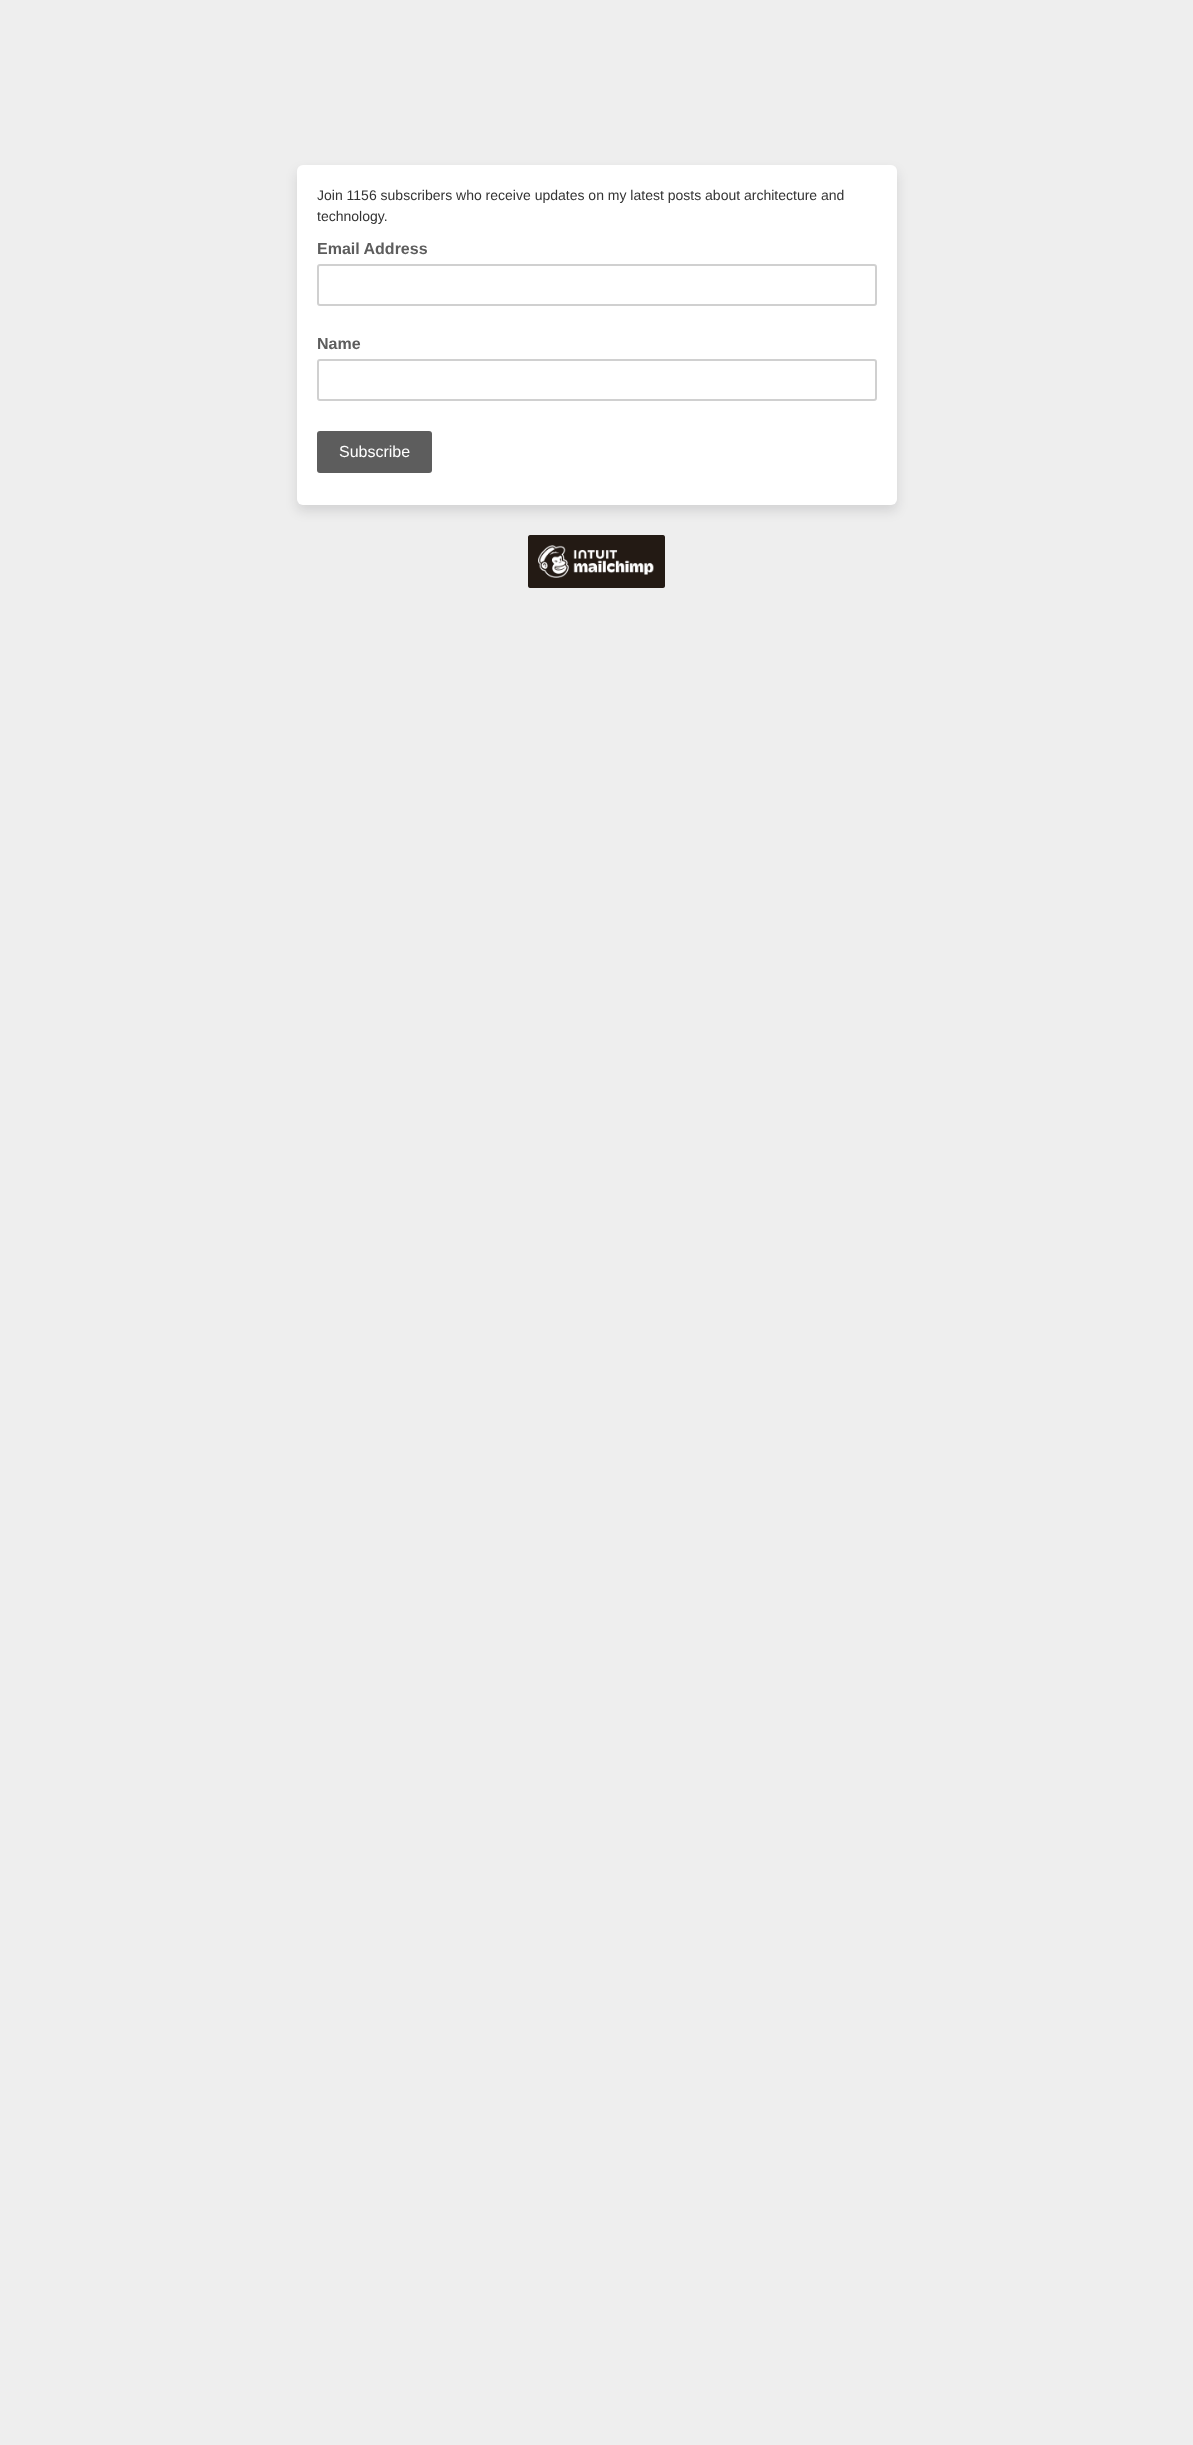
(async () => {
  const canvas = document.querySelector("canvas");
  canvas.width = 1193;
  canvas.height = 2445;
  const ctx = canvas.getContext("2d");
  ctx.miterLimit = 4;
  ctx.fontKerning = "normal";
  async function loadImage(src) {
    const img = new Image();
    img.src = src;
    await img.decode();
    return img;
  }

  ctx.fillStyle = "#eeeeee";
  ctx.fillRect(0, 0, 1193, 2445);
  ctx.fillStyle = "rgba(13, 18, 22, 0.12)";
  ctx.filter = "blur(6px)";
  ctx.beginPath();
  ctx.roundRect(297, 171, 600, 340, 6);
  ctx.fill();
  ctx.filter = "none";
  ctx.fillStyle = "#ffffff";
  ctx.beginPath();
  ctx.roundRect(297, 165, 600, 340, 6);
  ctx.fill();
  ctx.beginPath();
  ctx.roundRect(318, 265, 558, 40, 2);
  ctx.strokeStyle = "#d0d0d0";
  ctx.lineWidth = 2;
  ctx.stroke();
  ctx.beginPath();
  ctx.roundRect(318, 360, 558, 40, 2);
  ctx.stroke();
  ctx.fillStyle = "#5d5d5d";
  ctx.beginPath();
  ctx.roundRect(317, 431, 115, 42, 3);
  ctx.fill();
  ctx.drawImage(await loadImage("img/1.png"), 528, 535, 137, 53);
  ctx.font = "14px Liberation Sans";
  ctx.fillStyle = "#333333";
  ctx.fillText("Join 1156 subscribers who receive updates on my latest posts about architecture and", 317, 200);
  ctx.fillText("technology.", 317, 221);
  ctx.font = "bold 16px Liberation Sans";
  ctx.fillStyle = "#5d5d5d";
  ctx.fillText("Email Address", 317, 254);
  ctx.fillText("Name", 317, 349);
  ctx.font = "16px Liberation Sans";
  ctx.fillStyle = "#ffffff";
  ctx.fillText("Subscribe", 339, 457);
})();
